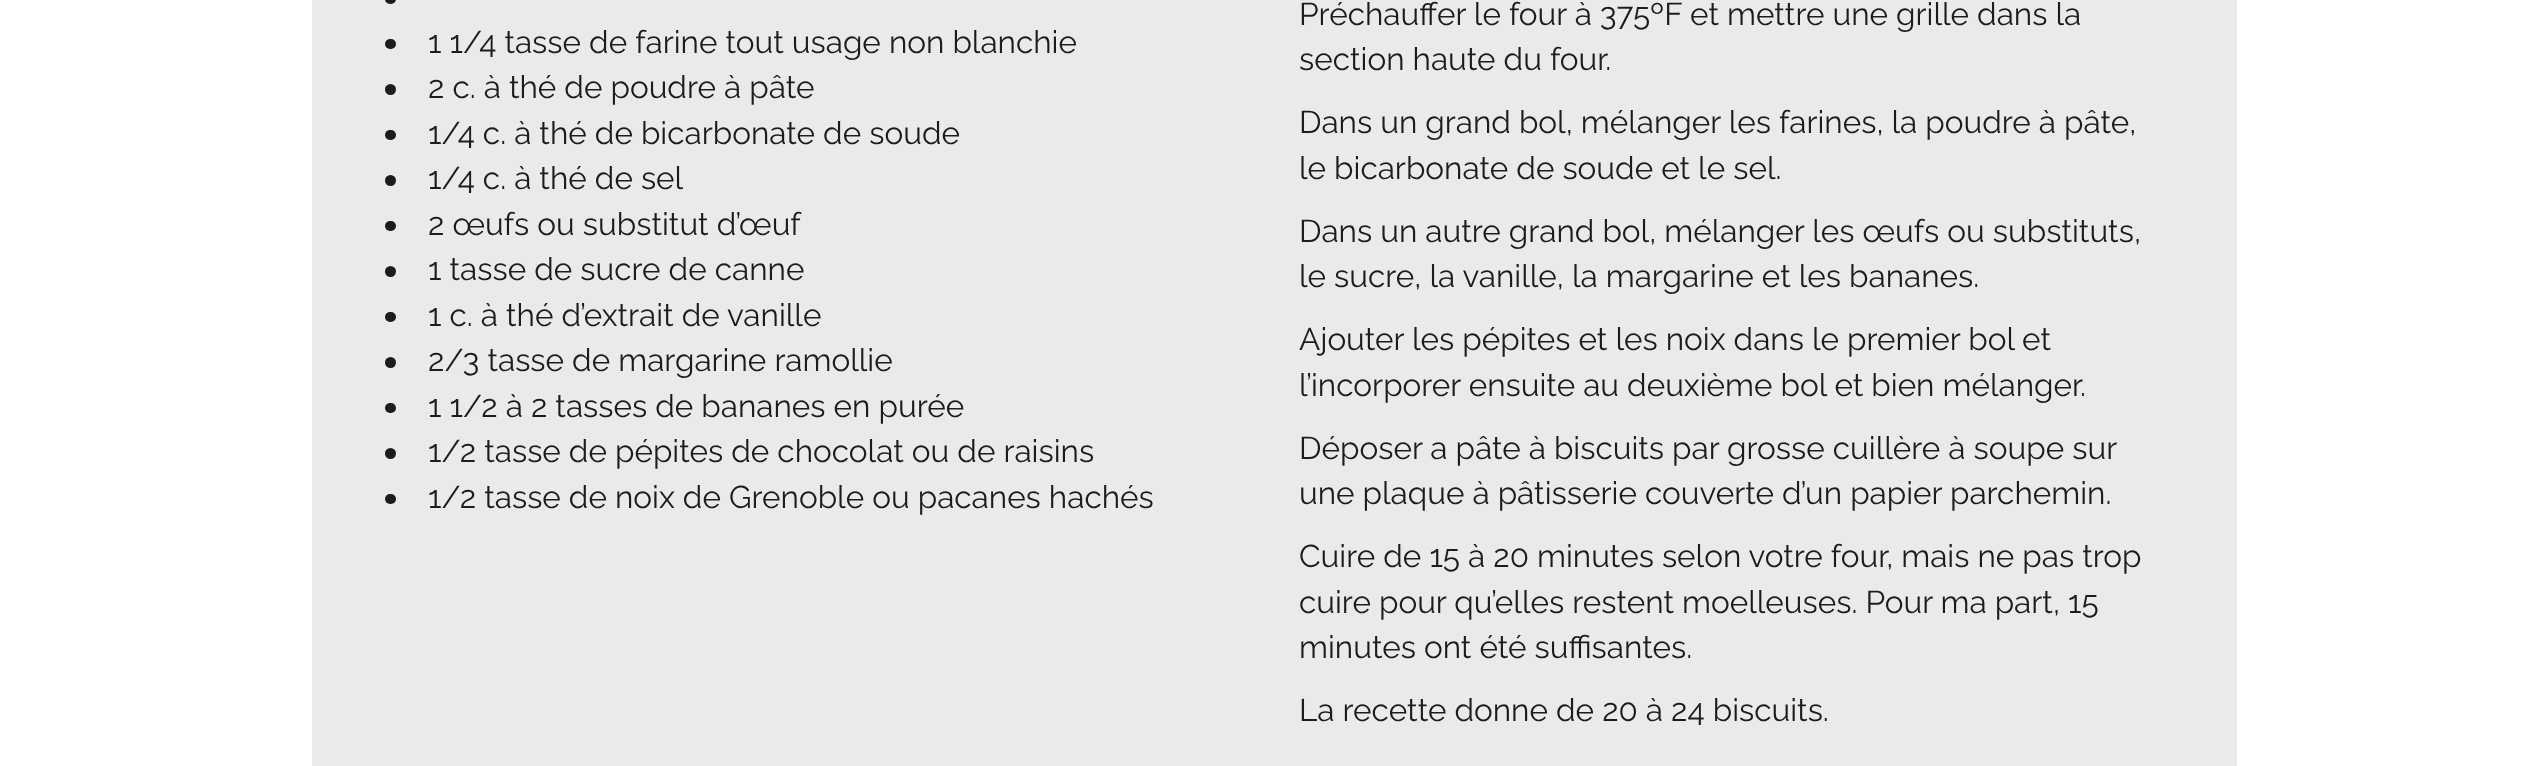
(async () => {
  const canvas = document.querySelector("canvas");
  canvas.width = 2546;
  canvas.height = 766;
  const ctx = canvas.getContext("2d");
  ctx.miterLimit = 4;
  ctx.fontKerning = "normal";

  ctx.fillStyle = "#ffffff";
  ctx.fillRect(0, 0, 2546, 766);
  ctx.fillStyle = "#eaeaea";
  ctx.fillRect(312, 0, 1925, 766);
  ctx.fillStyle = "#1c1c1c";
  ctx.beginPath();
  ctx.roundRect(385, -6, 11, 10, 5.5);
  ctx.fill();
  ctx.beginPath();
  ctx.roundRect(385, 39, 11, 10, 5);
  ctx.fill();
  ctx.beginPath();
  ctx.arc(390.5, 89.5, 5.5, 0, Math.PI * 2);
  ctx.fill();
  ctx.beginPath();
  ctx.roundRect(385, 130, 11, 10, 5);
  ctx.fill();
  ctx.beginPath();
  ctx.arc(390.5, 180.5, 5.5, 0, Math.PI * 2);
  ctx.fill();
  ctx.beginPath();
  ctx.roundRect(385, 221, 11, 10, 5);
  ctx.fill();
  ctx.beginPath();
  ctx.arc(390.5, 271.5, 5.5, 0, Math.PI * 2);
  ctx.fill();
  ctx.beginPath();
  ctx.roundRect(385, 312, 11, 10, 5);
  ctx.fill();
  ctx.beginPath();
  ctx.arc(390.5, 362.5, 5.5, 0, Math.PI * 2);
  ctx.fill();
  ctx.beginPath();
  ctx.roundRect(385, 403, 11, 10, 5);
  ctx.fill();
  ctx.beginPath();
  ctx.arc(390.5, 453.5, 5.5, 0, Math.PI * 2);
  ctx.fill();
  ctx.beginPath();
  ctx.roundRect(385, 494, 11, 10, 5);
  ctx.fill();
  ctx.font = "31.5px Raleway";
  for (const [text, x, y] of [
    ["1 1/4 tasse de farine tout usage non blanchie", 428, 53],
    ["2 c. à thé de poudre à pâte", 428, 98],
    ["1/4 c. à thé de bicarbonate de soude", 428, 144],
    ["1/4 c. à thé de sel", 428, 189],
    ["2 œufs ou substitut d’œuf", 428, 235],
    ["1 tasse de sucre de canne", 428, 280],
    ["1 c. à thé d’extrait de vanille", 428, 326],
    ["2/3 tasse de margarine ramollie", 428, 371],
    ["1 1/2 à 2 tasses de bananes en purée", 428, 417],
    ["1/2 tasse de pépites de chocolat ou de raisins", 428, 462],
    ["1/2 tasse de noix de Grenoble ou pacanes hachés", 428, 508],
    ["Préchauffer le four à 375ºF et mettre une grille dans la", 1299, 25],
    ["section haute du four.", 1299, 70],
    ["Dans un grand bol, mélanger les farines, la poudre à pâte,", 1299, 133],
    ["le bicarbonate de soude et le sel.", 1299, 179],
    ["Dans un autre grand bol, mélanger les œufs ou substituts,", 1299, 242],
    ["le sucre, la vanille, la margarine et les bananes.", 1299, 287],
    ["Ajouter les pépites et les noix dans le premier bol et", 1299, 350],
    ["l’incorporer ensuite au deuxième bol et bien mélanger.", 1299, 396],
    ["Déposer a pâte à biscuits par grosse cuillère à soupe sur", 1299, 459],
    ["une plaque à pâtisserie couverte d’un papier parchemin.", 1299, 504],
    ["Cuire de 15 à 20 minutes selon votre four, mais ne pas trop", 1299, 567],
    ["cuire pour qu’elles restent moelleuses. Pour ma part, 15", 1299, 613],
    ["minutes ont été suffisantes.", 1299, 658],
    ["La recette donne de 20 à 24 biscuits.", 1299, 721],
  ]) {
    ctx.fillText(text, x, y);
  }
})();
